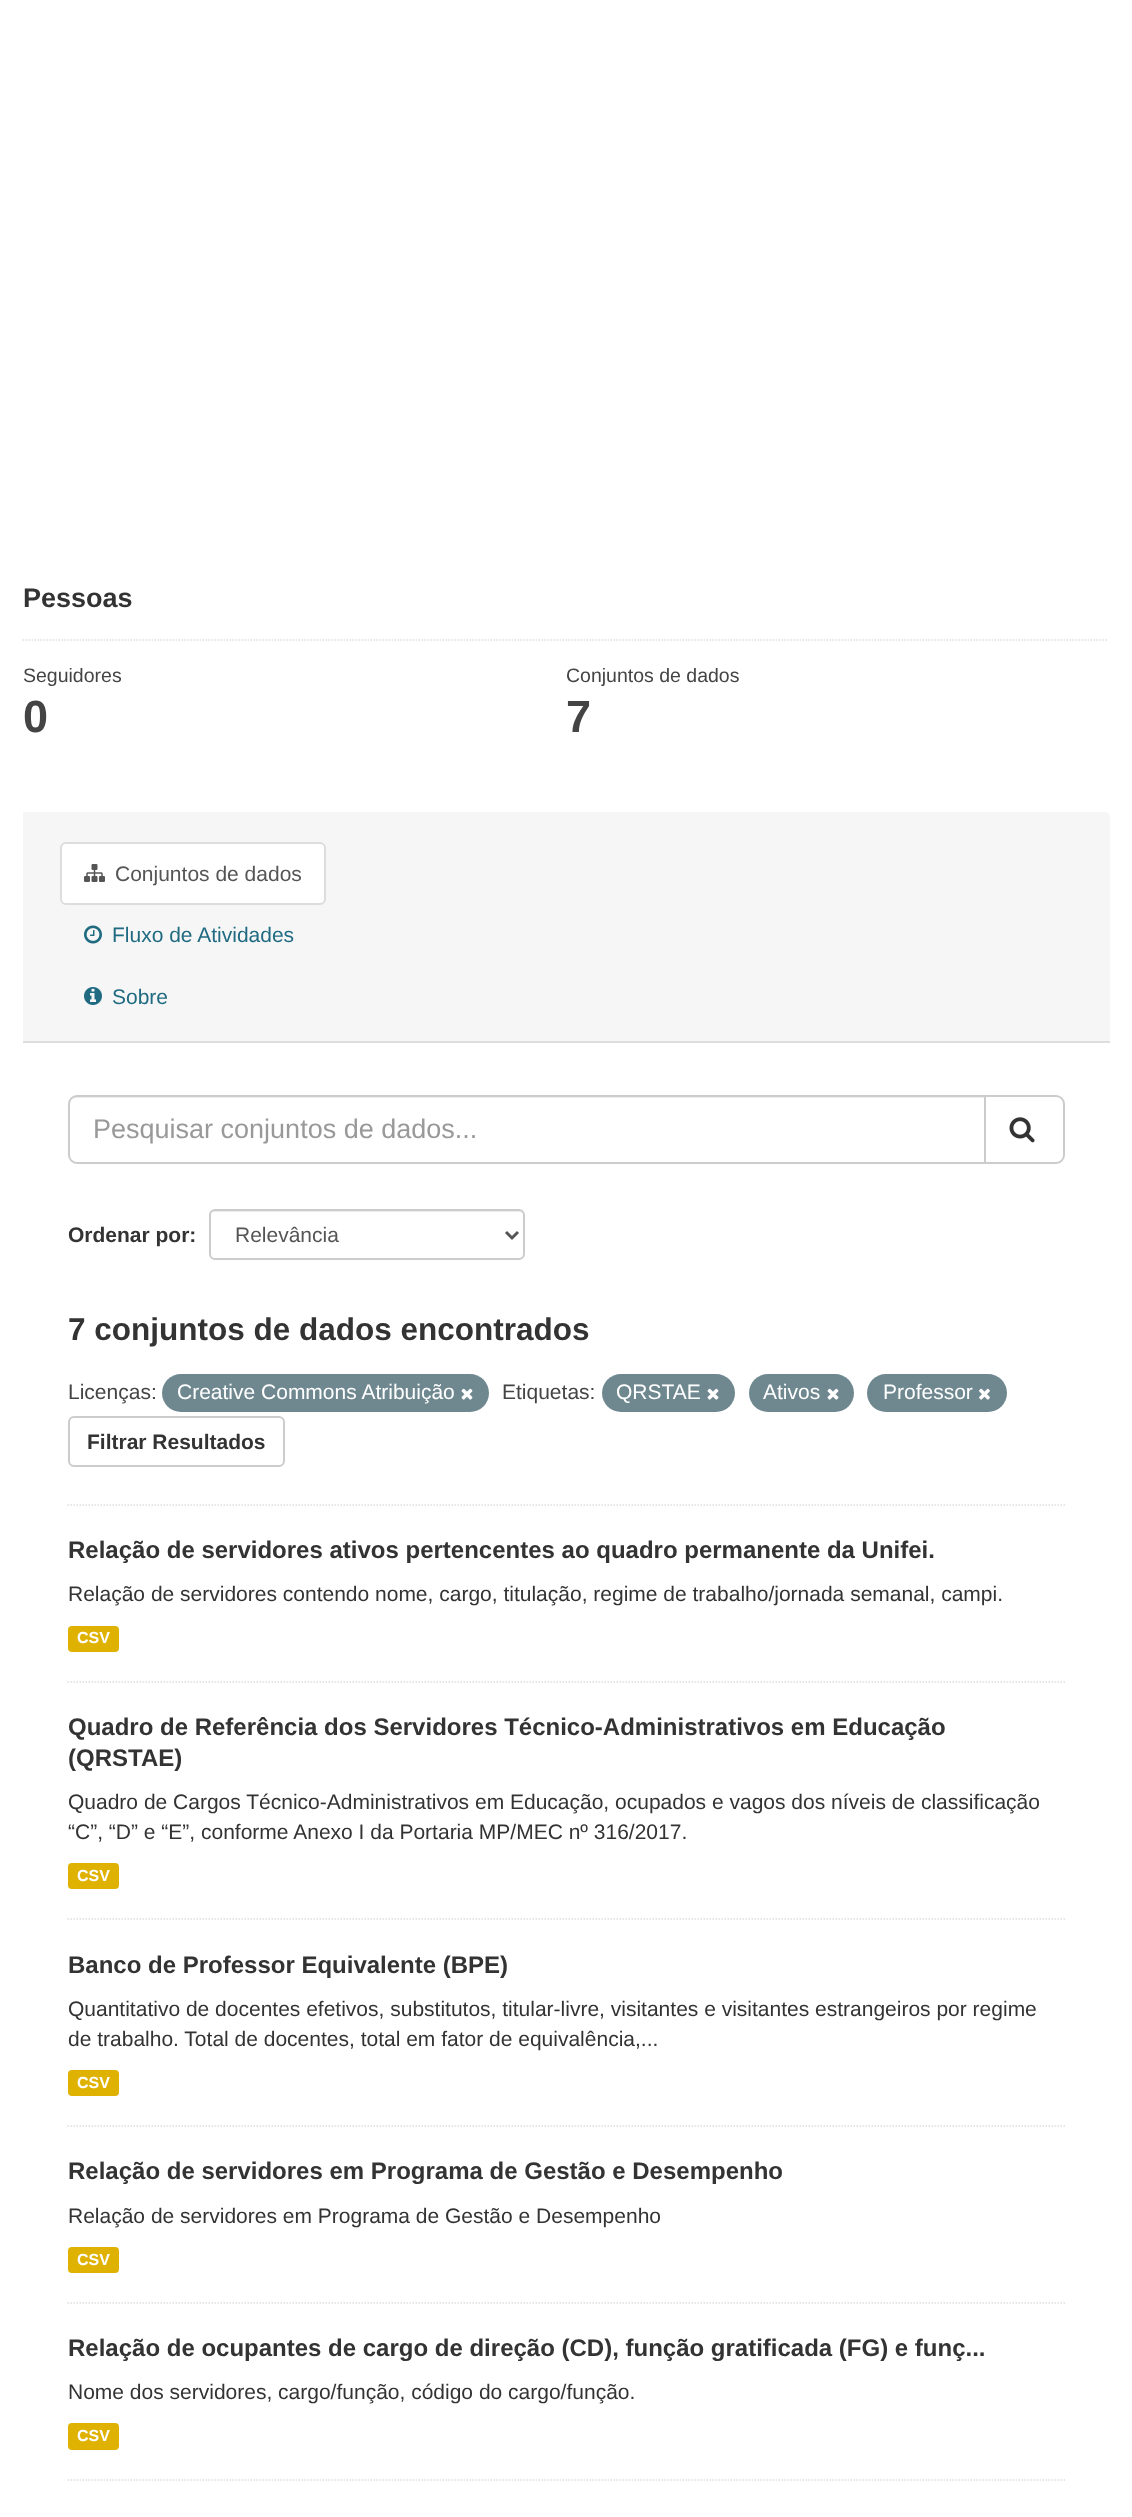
(async () => {
  const canvas = document.querySelector("canvas");
  canvas.width = 1132;
  canvas.height = 2517;
  const ctx = canvas.getContext("2d");
  ctx.miterLimit = 4;
  ctx.fontKerning = "normal";
  async function loadImage(src) {
    const img = new Image();
    img.src = src;
    await img.decode();
    return img;
  }
  let path;

  ctx.fillStyle = "#ffffff";
  ctx.fillRect(0, 0, 1132, 2517);
  path = new Path2D("M22.5 640H1108.5");
  ctx.strokeStyle = "#dddddd";
  ctx.lineWidth = 1.5;
  ctx.setLineDash([1.5, 1.5]);
  ctx.stroke(path);
  ctx.fillStyle = "#f6f6f6";
  ctx.beginPath();
  ctx.roundRect(23, 812, 1087, 231, [0, 5, 0, 0]);
  ctx.fill();
  ctx.fillStyle = "#dddddd";
  ctx.fillRect(23, 1041, 1087, 2);
  ctx.fillStyle = "#ffffff";
  ctx.beginPath();
  ctx.roundRect(61, 843, 264, 61, 5);
  ctx.fill();
  ctx.lineWidth = 2;
  ctx.setLineDash([]);
  ctx.stroke();
  ctx.drawImage(await loadImage("img/1.png"), 84, 864, 21, 18);
  ctx.drawImage(await loadImage("img/2.png"), 84, 925, 18, 19);
  ctx.drawImage(await loadImage("img/3.png"), 84, 987, 18, 18);
  path = new Path2D("M67.5 1505H1065");
  ctx.lineWidth = 1.5;
  ctx.setLineDash([1.5, 1.5]);
  ctx.stroke(path);
  ctx.fillStyle = "#ececec";
  path = new Path2D("M76 1098H984V1097H77C72 1097 69 1101 69 1106C69 1101 72 1098 76 1098Z");
  ctx.fill(path);
  ctx.beginPath();
  ctx.roundRect(69, 1096, 916, 67, [8, 0, 0, 8]);
  ctx.strokeStyle = "#cccccc";
  ctx.lineWidth = 2;
  ctx.setLineDash([]);
  ctx.stroke();
  ctx.fillStyle = "#ffffff";
  ctx.beginPath();
  ctx.roundRect(985, 1096, 79, 67, [0, 8, 8, 0]);
  ctx.fill();
  ctx.stroke();
  ctx.drawImage(await loadImage("img/4.png"), 1009, 1117, 26, 26);
  ctx.fillStyle = "#ececec";
  path = new Path2D("M214 1212H519C521 1212 524 1214 524 1216C524 1213 522 1211 519 1211H215C212 1211 210 1213 210 1216C210 1214 212 1212 214 1212Z");
  ctx.fill(path);
  ctx.beginPath();
  ctx.roundRect(210, 1210, 314, 49, 5);
  ctx.stroke();
  path = new Path2D("M506 1232L512 1238L518 1232");
  ctx.strokeStyle = "#555555";
  ctx.lineWidth = 3;
  ctx.stroke(path);
  ctx.fillStyle = "#6f8890";
  ctx.beginPath();
  ctx.roundRect(162, 1374, 327, 38, 19);
  ctx.fill();
  ctx.drawImage(await loadImage("img/5.png"), 461, 1388, 12, 12);
  ctx.beginPath();
  ctx.roundRect(602, 1374, 133, 38, 19);
  ctx.fill();
  ctx.drawImage(await loadImage("img/5.png"), 707, 1388, 12, 12);
  ctx.beginPath();
  ctx.roundRect(749, 1374, 105, 38, 19);
  ctx.fill();
  ctx.drawImage(await loadImage("img/5.png"), 827, 1388, 12, 12);
  ctx.beginPath();
  ctx.roundRect(867, 1374, 140, 38, 19);
  ctx.fill();
  ctx.drawImage(await loadImage("img/6.png"), 979, 1388, 11, 12);
  ctx.beginPath();
  ctx.roundRect(69, 1417, 215, 49, 5);
  ctx.strokeStyle = "#cccccc";
  ctx.lineWidth = 2;
  ctx.stroke();
  path = new Path2D("M67.5 1682H1065");
  ctx.strokeStyle = "#dddddd";
  ctx.lineWidth = 1.5;
  ctx.setLineDash([1.5, 1.5]);
  ctx.stroke(path);
  ctx.fillStyle = "#dfb100";
  ctx.beginPath();
  ctx.roundRect(68, 1626, 51, 26, 4);
  ctx.fill();
  path = new Path2D("M67.5 1919H1065");
  ctx.stroke(path);
  ctx.beginPath();
  ctx.roundRect(68, 1863, 51, 26, 4);
  ctx.fill();
  path = new Path2D("M67.5 2126H1065");
  ctx.stroke(path);
  ctx.beginPath();
  ctx.roundRect(68, 2070, 51, 26, 4);
  ctx.fill();
  path = new Path2D("M67.5 2303H1065");
  ctx.stroke(path);
  ctx.beginPath();
  ctx.roundRect(68, 2247, 51, 26, 4);
  ctx.fill();
  path = new Path2D("M67.5 2480H1065");
  ctx.stroke(path);
  ctx.beginPath();
  ctx.roundRect(68, 2423, 51, 27, 4);
  ctx.fill();
  ctx.font = "bold 27px Liberation Sans";
  ctx.fillStyle = "#333333";
  ctx.fillText("Pessoas", 23, 607);
  ctx.font = "19.5px Liberation Sans";
  ctx.fillStyle = "#444444";
  ctx.fillText("Seguidores", 23, 682);
  ctx.font = "bold 45px Liberation Sans";
  ctx.fillText("0", 23, 732);
  ctx.font = "19.5px Liberation Sans";
  ctx.fillText("Conjuntos de dados", 566, 682);
  ctx.font = "bold 45px Liberation Sans";
  ctx.fillText("7", 566, 732);
  ctx.font = "21px Liberation Sans";
  ctx.fillStyle = "#555555";
  ctx.fillText("Conjuntos de dados", 115, 881);
  ctx.fillStyle = "#206b82";
  ctx.fillText("Fluxo de Atividades", 112, 942);
  ctx.fillText("Sobre", 112, 1004);
  ctx.font = "27px Liberation Sans";
  ctx.fillStyle = "#999999";
  ctx.fillText("Pesquisar conjuntos de dados...", 93, 1138);
  ctx.font = "bold 21px Liberation Sans";
  ctx.fillStyle = "#333333";
  ctx.fillText("Ordenar por:", 68, 1242);
  ctx.font = "21px Liberation Sans";
  ctx.fillStyle = "#555555";
  ctx.fillText("Relevância", 235, 1242);
  ctx.font = "bold 31.5px Liberation Sans";
  ctx.fillStyle = "#333333";
  ctx.fillText("7 conjuntos de dados encontrados", 68, 1340);
  ctx.font = "21px Liberation Sans";
  ctx.fillStyle = "#444444";
  ctx.fillText("Licenças:", 68, 1399);
  ctx.fillStyle = "#ffffff";
  ctx.fillText("Creative Commons Atribuição", 177, 1399);
  ctx.fillStyle = "#444444";
  ctx.fillText("Etiquetas:", 502, 1399);
  ctx.fillStyle = "#ffffff";
  for (const [text, x, y] of [
    ["QRSTAE", 616, 1399],
    ["Ativos", 763, 1399],
    ["Professor", 883, 1399],
  ]) {
    ctx.fillText(text, x, y);
  }
  ctx.font = "bold 21px Liberation Sans";
  ctx.fillStyle = "#333333";
  ctx.fillText("Filtrar Resultados", 87, 1449);
  ctx.font = "bold 24px Liberation Sans";
  ctx.fillText("Relação de servidores ativos pertencentes ao quadro permanente da Unifei.", 68, 1558);
  ctx.font = "21px Liberation Sans";
  ctx.fillText("Relação de servidores contendo nome, cargo, titulação, regime de trabalho/jornada semanal, campi.", 68, 1601);
  ctx.font = "bold 16px Liberation Sans";
  ctx.fillStyle = "#ffffff";
  ctx.fillText("CSV", 77, 1643);
  ctx.font = "bold 24px Liberation Sans";
  ctx.fillStyle = "#333333";
  ctx.fillText("Quadro de Referência dos Servidores Técnico-Administrativos em Educação", 68, 1735);
  ctx.fillText("(QRSTAE)", 68, 1766);
  ctx.font = "21px Liberation Sans";
  ctx.fillText("Quadro de Cargos Técnico-Administrativos em Educação, ocupados e vagos dos níveis de classificação", 68, 1809);
  ctx.fillText("“C”, “D” e “E”, conforme Anexo I da Portaria MP/MEC nº 316/2017.", 68, 1839);
  ctx.font = "bold 16px Liberation Sans";
  ctx.fillStyle = "#ffffff";
  ctx.fillText("CSV", 77, 1881);
  ctx.font = "bold 24px Liberation Sans";
  ctx.fillStyle = "#333333";
  ctx.fillText("Banco de Professor Equivalente (BPE)", 68, 1973);
  ctx.font = "21px Liberation Sans";
  ctx.fillText("Quantitativo de docentes efetivos, substitutos, titular-livre, visitantes e visitantes estrangeiros por regime", 68, 2016);
  ctx.fillText("de trabalho. Total de docentes, total em fator de equivalência,...", 68, 2046);
  ctx.font = "bold 16px Liberation Sans";
  ctx.fillStyle = "#ffffff";
  ctx.fillText("CSV", 77, 2088);
  ctx.font = "bold 24px Liberation Sans";
  ctx.fillStyle = "#333333";
  ctx.fillText("Relação de servidores em Programa de Gestão e Desempenho", 68, 2179);
  ctx.font = "21px Liberation Sans";
  ctx.fillText("Relação de servidores em Programa de Gestão e Desempenho", 68, 2223);
  ctx.font = "bold 16px Liberation Sans";
  ctx.fillStyle = "#ffffff";
  ctx.fillText("CSV", 77, 2265);
  ctx.font = "bold 24px Liberation Sans";
  ctx.fillStyle = "#333333";
  ctx.fillText("Relação de ocupantes de cargo de direção (CD), função gratificada (FG) e funç...", 68, 2356);
  ctx.font = "21px Liberation Sans";
  ctx.fillText("Nome dos servidores, cargo/função, código do cargo/função.", 68, 2399);
  ctx.font = "bold 16px Liberation Sans";
  ctx.fillStyle = "#ffffff";
  ctx.fillText("CSV", 77, 2441);
})();
